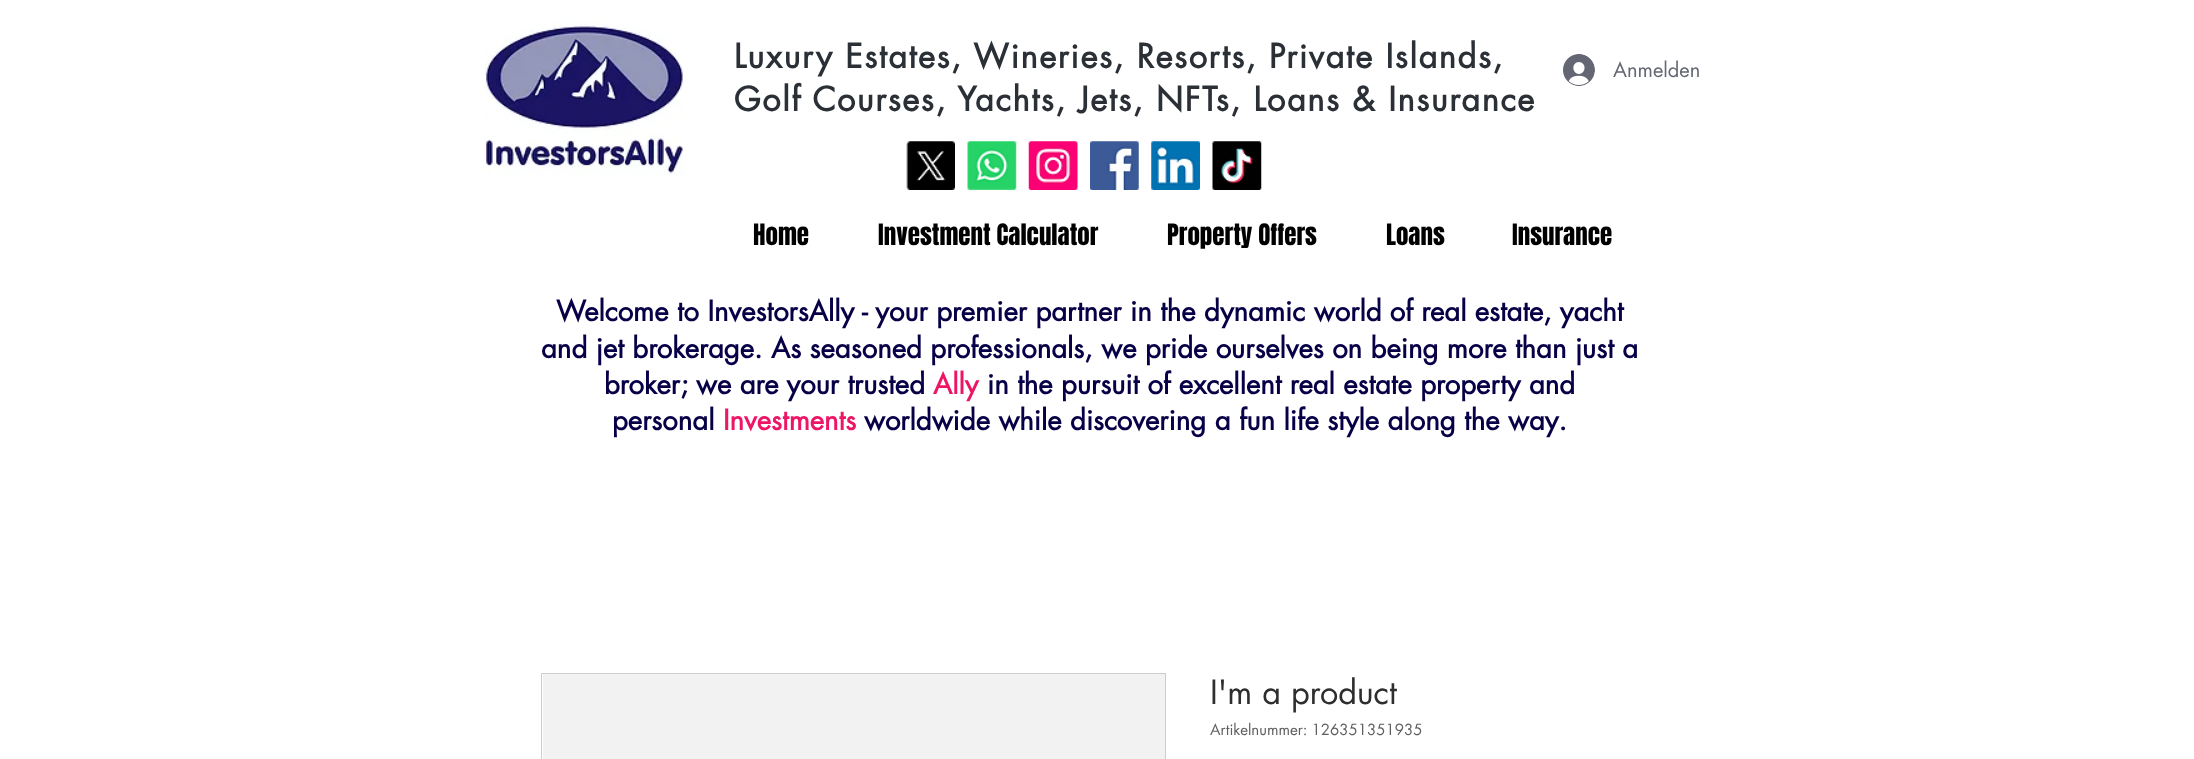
(async () => {
  const canvas = document.querySelector("canvas");
  canvas.width = 2194;
  canvas.height = 759;
  const ctx = canvas.getContext("2d");
  ctx.miterLimit = 4;
  ctx.fontKerning = "normal";
  async function loadImage(src) {
    const img = new Image();
    img.src = src;
    await img.decode();
    return img;
  }

  ctx.fillStyle = "#ffffff";
  ctx.fillRect(0, 0, 2194, 759);
  ctx.drawImage(await loadImage("img/1.png"), 485, 20, 199, 155);
  ctx.drawImage(await loadImage("img/2.png"), 1563, 54, 32, 32);
  ctx.drawImage(await loadImage("img/3.png"), 906, 141, 49, 49);
  ctx.drawImage(await loadImage("img/4.png"), 967, 141, 50, 49);
  ctx.drawImage(await loadImage("img/5.png"), 1028, 141, 50, 49);
  ctx.drawImage(await loadImage("img/6.png"), 1090, 141, 49, 49);
  ctx.drawImage(await loadImage("img/7.png"), 1151, 141, 49, 49);
  ctx.drawImage(await loadImage("img/8.png"), 1212, 141, 50, 49);
  ctx.strokeStyle = "#cccccc";
  ctx.strokeRect(541.5, 673.5, 624, 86);
  ctx.fillStyle = "#f2f2f2";
  ctx.fillRect(543, 674, 622, 85);
  ctx.letterSpacing = "1.62px";
  ctx.font = "bold 32.5px futura";
  ctx.fillStyle = "#2b3037";
  ctx.fillText("Luxury Estates, Wineries, Resorts, Private Islands,", 734, 68);
  ctx.fillText("Golf Courses, Yachts, Jets, NFTs, Loans & Insurance", 734, 111);
  ctx.letterSpacing = "0px";
  ctx.font = "20px futura";
  ctx.fillStyle = "#646773";
  ctx.fillText("Anmelden", 1613, 77);
  ctx.font = "25px Anton";
  ctx.fillStyle = "#000000";
  for (const [text, x, y] of [
    ["Home", 753, 245],
    ["Investment Calculator", 878, 245],
    ["Property Offers", 1167, 245],
    ["Loans", 1386, 245],
    ["Insurance", 1512, 245],
  ]) {
    ctx.fillText(text, x, y);
  }
  ctx.font = "bold 27.5px futura";
  ctx.fillStyle = "#070047";
  for (const [text, x, y] of [
    ["Welcome to InvestorsAlly - your premier partner in the dynamic world of real estate, yacht", 556, 321],
    ["and jet brokerage. As seasoned professionals, we pride ourselves on being more than just a", 541, 358],
    ["broker; we are your trusted", 604, 394],
  ]) {
    ctx.fillText(text, x, y);
  }
  ctx.fillStyle = "#ed1566";
  ctx.fillText("Ally", 933, 394);
  ctx.fillStyle = "#070047";
  ctx.fillText("in the pursuit of excellent real estate property and", 987, 394);
  ctx.fillText("personal", 612, 430);
  ctx.fillStyle = "#ed1566";
  ctx.fillText("Investments", 723, 430);
  ctx.fillStyle = "#070047";
  ctx.fillText("worldwide while discovering a fun life style along the way.", 864, 430);
  ctx.font = "32.5px futura";
  ctx.fillStyle = "#2f2e2e";
  ctx.fillText("I'm a product", 1210, 704);
  ctx.font = "15px futura";
  ctx.fillStyle = "#605e5e";
  ctx.fillText("Artikelnummer: 126351351935", 1210, 735);
})();
